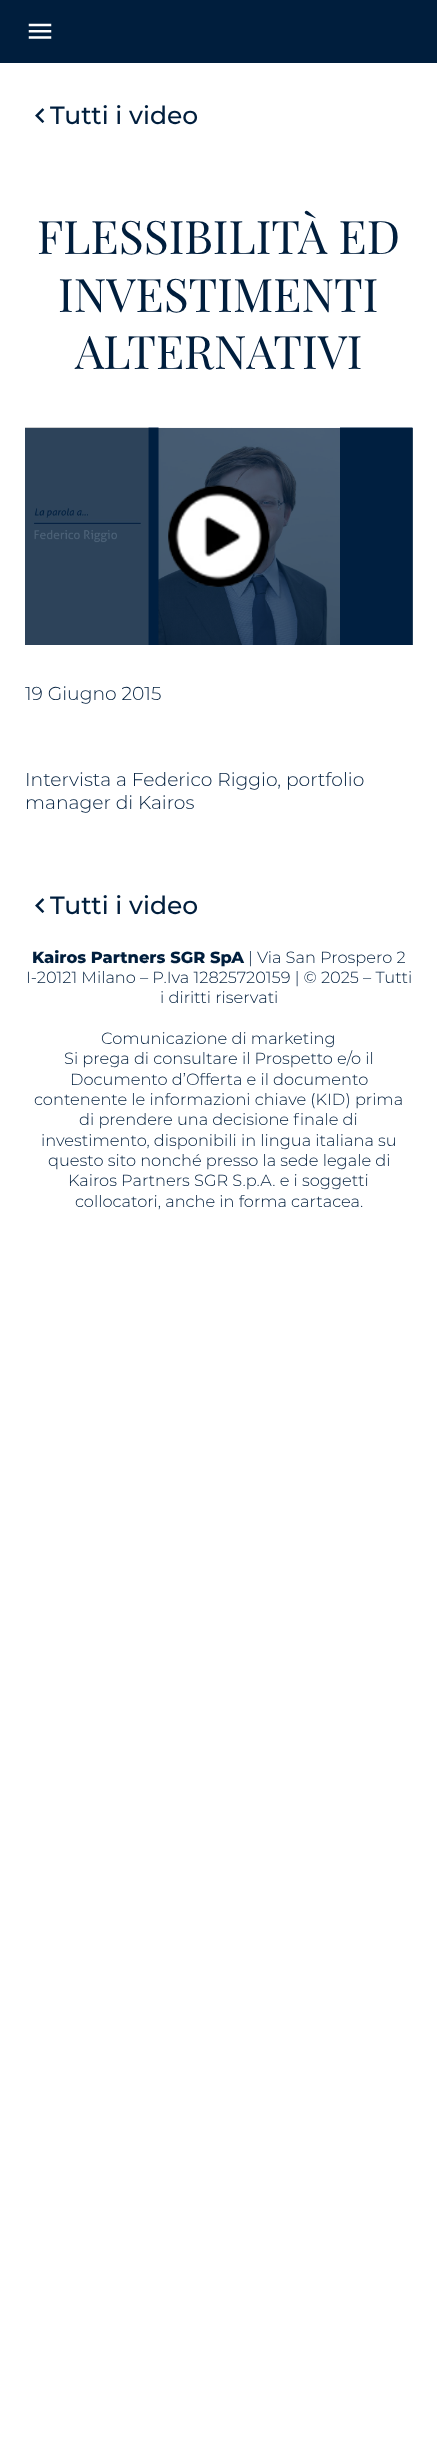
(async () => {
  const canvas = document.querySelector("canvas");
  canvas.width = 437;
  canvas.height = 2443;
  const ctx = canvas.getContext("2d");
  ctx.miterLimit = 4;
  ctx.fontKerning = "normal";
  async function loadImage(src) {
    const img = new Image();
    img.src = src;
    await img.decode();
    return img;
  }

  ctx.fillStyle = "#ffffff";
  ctx.fillRect(0, 0, 437, 2443);
  ctx.fillStyle = "#4d6277";
  ctx.fillRect(412, 428, 1, 217);
  ctx.fillStyle = "#001e3d";
  ctx.fillRect(0, 0, 437, 63);
  ctx.drawImage(await loadImage("img/1.png"), 28, 23, 24, 16);
  ctx.drawImage(await loadImage("img/2.png"), 35, 108, 10, 15);
  ctx.drawImage(await loadImage("img/3.png"), 25, 427, 388, 218);
  ctx.drawImage(await loadImage("img/4.png"), 168, 485, 102, 102);
  ctx.drawImage(await loadImage("img/2.png"), 35, 898, 10, 15);
  ctx.font = "500 25px Montserrat";
  ctx.fillText("Tutti i video", 50, 124);
  ctx.font = "46.25px Playfair Display";
  for (const [text, x, y] of [
    ["FLESSIBILITÀ ED", 37, 254],
    ["INVESTIMENTI", 58, 312],
    ["ALTERNATIVI", 75, 369],
  ]) {
    ctx.fillText(text, x, y);
  }
  ctx.font = "300 18.75px Montserrat";
  for (const [text, x, y] of [
    ["19 Giugno 2015", 25, 700],
    ["Intervista a Federico Riggio, portfolio", 25, 786],
    ["manager di Kairos", 25, 809],
  ]) {
    ctx.fillText(text, x, y);
  }
  ctx.font = "500 25px Montserrat";
  ctx.fillText("Tutti i video", 50, 914);
  ctx.font = "800 16.25px Montserrat";
  ctx.fillText("Kairos Partners SGR SpA", 32, 963);
  ctx.font = "300 16.25px Montserrat";
  for (const [text, x, y] of [
    ["| Via San Prospero 2", 248, 963],
    ["I-20121 Milano – P.Iva 12825720159 | © 2025 – Tutti", 26, 983],
    ["i diritti riservati", 160, 1003],
    ["Comunicazione di marketing", 101, 1044],
    ["Si prega di consultare il Prospetto e/o il", 64, 1064],
    ["Documento d’Offerta e il documento", 70, 1085],
    ["contenente le informazioni chiave (KID) prima", 34, 1105],
    ["di prendere una decisione finale di", 79, 1125],
    ["investimento, disponibili in lingua italiana su", 41, 1146],
    ["questo sito nonché presso la sede legale di", 48, 1166],
    ["Kairos Partners SGR S.p.A. e i soggetti", 68, 1186],
    ["collocatori, anche in forma cartacea.", 75, 1207],
  ]) {
    ctx.fillText(text, x, y);
  }
})();
